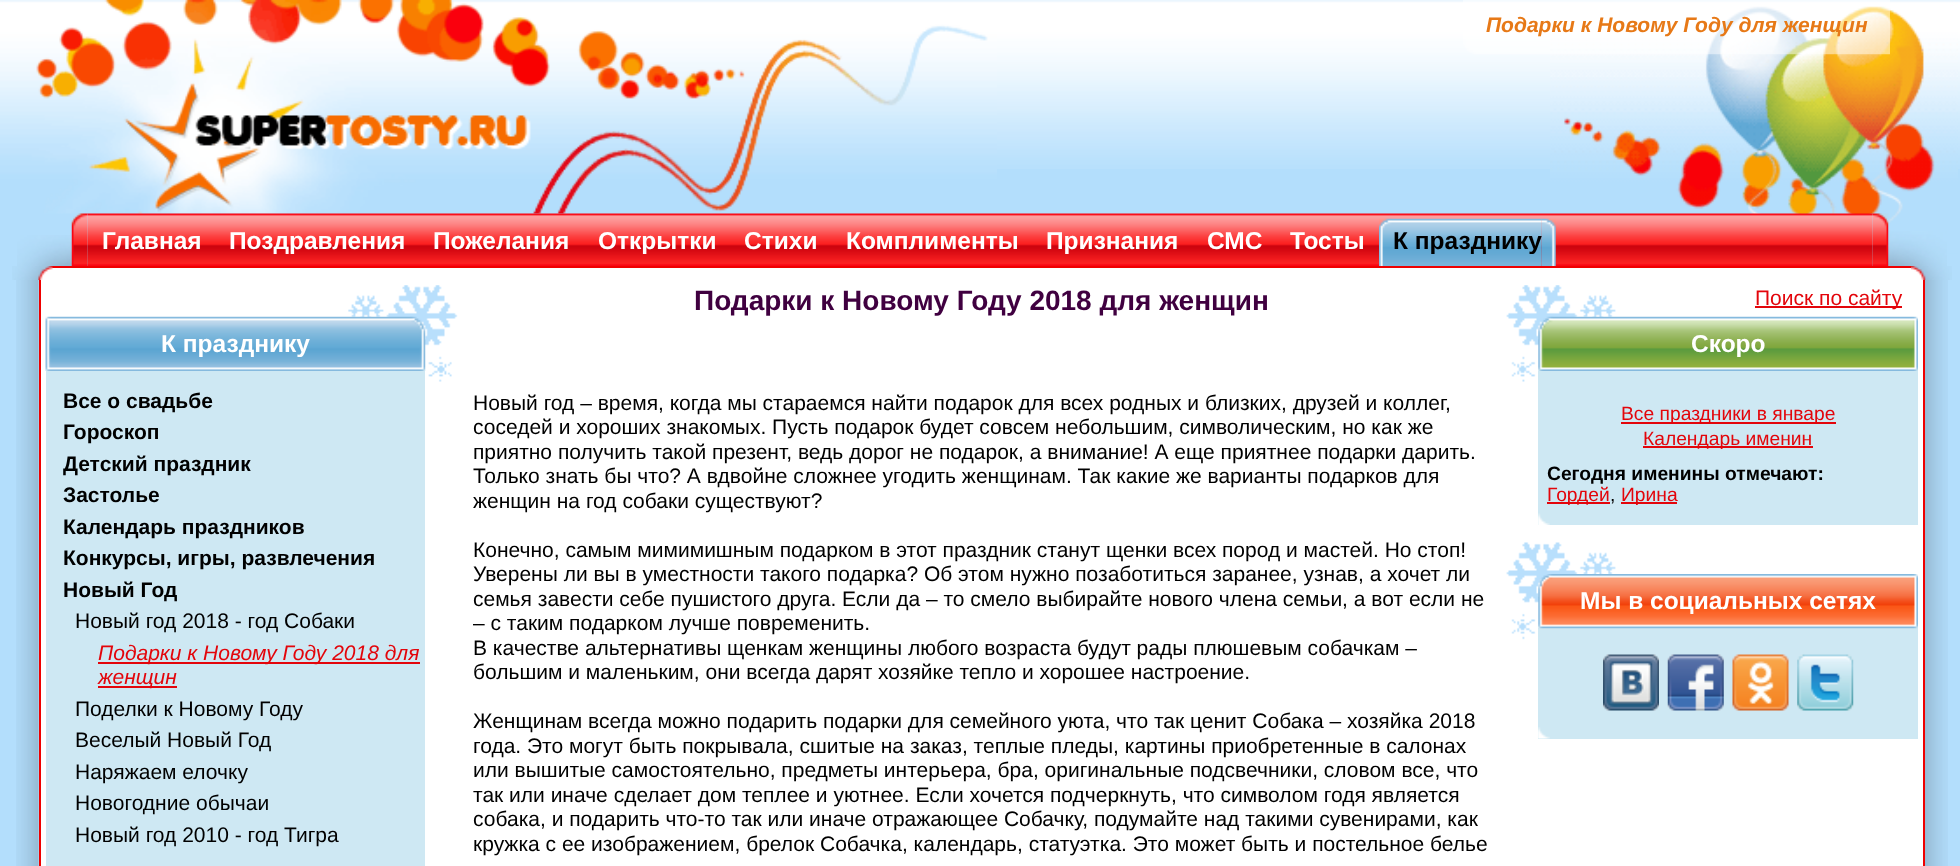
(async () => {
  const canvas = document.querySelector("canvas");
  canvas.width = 1960;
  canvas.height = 866;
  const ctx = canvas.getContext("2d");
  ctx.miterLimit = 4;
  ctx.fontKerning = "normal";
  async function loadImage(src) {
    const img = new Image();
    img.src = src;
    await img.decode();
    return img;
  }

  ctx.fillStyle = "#b3defc";
  ctx.fillRect(0, 0, 1960, 866);
  ctx.drawImage(await loadImage("img/1.png"), 997, 0, 963, 169);
  ctx.drawImage(await loadImage("img/2.png"), 0, 0, 997, 214);
  ctx.drawImage(await loadImage("img/3.png"), 1550, 6, 408, 248);
  ctx.drawImage(await loadImage("img/4.png"), 1463, 0, 427, 55);
  ctx.drawImage(await loadImage("img/11.png"), 87, 240, 1786, 26);
  ctx.drawImage(await loadImage("img/5.png"), 87, 213, 1786, 53);
  ctx.drawImage(await loadImage("img/12.png"), 17, 235, 55, 31);
  ctx.drawImage(await loadImage("img/6.png"), 71, 213, 17, 53);
  ctx.drawImage(await loadImage("img/7.png"), 1379, 218, 14, 48);
  ctx.drawImage(await loadImage("img/8.png"), 1541, 218, 15, 48);
  ctx.drawImage(await loadImage("img/9.png"), 1393, 218, 149, 48);
  ctx.drawImage(await loadImage("img/13.png"), 1888, 231, 59, 35);
  ctx.drawImage(await loadImage("img/10.png"), 1872, 213, 17, 53);
  ctx.fillStyle = "#ffffff";
  ctx.beginPath();
  ctx.rect(40, 267, 1884, 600);
  ctx.fill();
  ctx.strokeStyle = "#ef0000";
  ctx.lineWidth = 2;
  ctx.stroke();
  ctx.drawImage(await loadImage("img/14.png"), 12, 266, 41, 14);
  ctx.drawImage(await loadImage("img/15.png"), 1911, 266, 41, 14);
  ctx.drawImage(await loadImage("img/16.png"), 16, 280, 23, 586);
  ctx.drawImage(await loadImage("img/17.png"), 348, 285, 110, 97);
  ctx.drawImage(await loadImage("img/18.png"), 45, 316, 381, 55);
  for (const [x, y, w, h, color] of [
    [46, 371, 379, 495, "#cee8f3"],
    [98, 662, 322, 2, "#e3050b"],
    [98, 686, 79, 2, "#e3050b"],
    [1755, 306, 147, 2, "#e3050b"],
  ]) {
    ctx.fillStyle = color;
    ctx.fillRect(x, y, w, h);
  }
  ctx.drawImage(await loadImage("img/19.png"), 1506, 285, 110, 97);
  ctx.drawImage(await loadImage("img/20.png"), 1538, 316, 380, 55);
  ctx.fillStyle = "#cee8f3";
  ctx.fillRect(1538, 371, 380, 154);
  ctx.drawImage(await loadImage("img/21.png"), 1538, 513, 12, 12);
  for (const [x, y, w, h, color] of [
    [1621, 422, 215, 2, "#e3050b"],
    [1643, 446, 170, 2, "#e3050b"],
    [1547, 502, 63, 2, "#e3050b"],
    [1621, 502, 56, 2, "#e3050b"],
  ]) {
    ctx.fillStyle = color;
    ctx.fillRect(x, y, w, h);
  }
  ctx.drawImage(await loadImage("img/22.png"), 1506, 542, 110, 98);
  ctx.fillStyle = "#cee8f3";
  ctx.fillRect(1538, 628, 380, 111);
  ctx.drawImage(await loadImage("img/23.png"), 1538, 574, 380, 55);
  ctx.drawImage(await loadImage("img/24.png"), 1538, 727, 12, 12);
  ctx.drawImage(await loadImage("img/25.png"), 1603, 654, 56, 57);
  ctx.drawImage(await loadImage("img/26.png"), 1667, 654, 57, 57);
  ctx.drawImage(await loadImage("img/27.png"), 1732, 654, 57, 57);
  ctx.drawImage(await loadImage("img/28.png"), 1797, 654, 57, 57);
  ctx.drawImage(await loadImage("img/29.png"), 1925, 280, 23, 586);
  ctx.font = "italic bold 21px Liberation Sans";
  ctx.fillStyle = "#e77917";
  ctx.fillText("Подарки к Новому Году для женщин", 1486, 32);
  ctx.font = "bold 24.5px Liberation Sans";
  ctx.fillStyle = "#ffffff";
  for (const [text, x, y] of [
    ["Главная", 102, 249],
    ["Поздравления", 229, 249],
    ["Пожелания", 433, 249],
    ["Открытки", 598, 249],
    ["Стихи", 744, 249],
    ["Комплименты", 846, 249],
    ["Признания", 1046, 249],
    ["СМС", 1207, 249],
    ["Тосты", 1290, 249],
  ]) {
    ctx.fillText(text, x, y);
  }
  ctx.fillStyle = "#000000";
  ctx.fillText("К празднику", 1393, 249);
  ctx.fillStyle = "#ffffff";
  ctx.fillText("К празднику", 161, 352);
  ctx.font = "bold 21px Liberation Sans";
  ctx.fillStyle = "#000000";
  for (const [text, x, y] of [
    ["Все о свадьбе", 63, 408],
    ["Гороскоп", 63, 439],
    ["Детский праздник", 63, 471],
    ["Застолье", 63, 502],
    ["Календарь праздников", 63, 534],
    ["Конкурсы, игры, развлечения", 63, 565],
    ["Новый Год", 63, 597],
  ]) {
    ctx.fillText(text, x, y);
  }
  ctx.font = "21px Liberation Sans";
  ctx.fillText("Новый год 2018 - год Собаки", 75, 628);
  ctx.font = "italic 21px Liberation Sans";
  ctx.fillStyle = "#e3050b";
  ctx.fillText("Подарки к Новому Году 2018 для", 98, 660);
  ctx.fillText("женщин", 98, 684);
  ctx.font = "21px Liberation Sans";
  ctx.fillStyle = "#000000";
  for (const [text, x, y] of [
    ["Поделки к Новому Году", 75, 716],
    ["Веселый Новый Год", 75, 747],
    ["Наряжаем елочку", 75, 779],
    ["Новогодние обычаи", 75, 810],
    ["Новый год 2010 - год Тигра", 75, 842],
  ]) {
    ctx.fillText(text, x, y);
  }
  ctx.font = "bold 28px Liberation Sans";
  ctx.fillStyle = "#400040";
  ctx.fillText("Подарки к Новому Году 2018 для женщин", 694, 310);
  ctx.font = "21px Liberation Sans";
  ctx.fillStyle = "#000000";
  for (const [text, x, y] of [
    ["Новый год – время, когда мы стараемся найти подарок для всех родных и близких, друзей и коллег,", 473, 410],
    ["соседей и хороших знакомых. Пусть подарок будет совсем небольшим, символическим, но как же", 473, 434],
    ["приятно получить такой презент, ведь дорог не подарок, а внимание! А еще приятнее подарки дарить.", 473, 459],
    ["Только знать бы что? А вдвойне сложнее угодить женщинам. Так какие же варианты подарков для", 473, 483],
    ["женщин на год собаки существуют?", 473, 508],
    ["Конечно, самым мимимишным подарком в этот праздник станут щенки всех пород и мастей. Но стоп!", 473, 557],
    ["Уверены ли вы в уместности такого подарка? Об этом нужно позаботиться заранее, узнав, а хочет ли", 473, 581],
    ["семья завести себе пушистого друга. Если да – то смело выбирайте нового члена семьи, а вот если не", 473, 606],
    ["– с таким подарком лучше повременить.", 473, 630],
    ["В качестве альтернативы щенкам женщины любого возраста будут рады плюшевым собачкам –", 473, 655],
    ["большим и маленьким, они всегда дарят хозяйке тепло и хорошее настроение.", 473, 679],
    ["Женщинам всегда можно подарить подарки для семейного уюта, что так ценит Собака – хозяйка 2018", 473, 728],
    ["года. Это могут быть покрывала, сшитые на заказ, теплые пледы, картины приобретенные в салонах", 473, 753],
    ["или вышитые самостоятельно, предметы интерьера, бра, оригинальные подсвечники, словом все, что", 473, 777],
    ["так или иначе сделает дом теплее и уютнее. Если хочется подчеркнуть, что символом годя является", 473, 802],
    ["собака, и подарить что-то так или иначе отражающее Собачку, подумайте над такими сувенирами, как", 473, 826],
    ["кружка с ее изображением, брелок Собачка, календарь, статуэтка. Это может быть и постельное белье", 473, 851],
  ]) {
    ctx.fillText(text, x, y);
  }
  ctx.fillStyle = "#e3050b";
  ctx.fillText("Поиск по сайту", 1755, 305);
  ctx.font = "bold 24.5px Liberation Sans";
  ctx.fillStyle = "#ffffff";
  ctx.fillText("Скоро", 1691, 352);
  ctx.font = "19.25px Liberation Sans";
  ctx.fillStyle = "#e3050b";
  ctx.fillText("Все праздники в январе", 1621, 420);
  ctx.fillText("Календарь именин", 1643, 445);
  ctx.font = "bold 19.25px Liberation Sans";
  ctx.fillStyle = "#000000";
  ctx.fillText("Сегодня именины отмечают:", 1547, 480);
  ctx.font = "19.25px Liberation Sans";
  ctx.fillStyle = "#e3050b";
  ctx.fillText("Гордей", 1547, 501);
  ctx.fillStyle = "#000000";
  ctx.fillText(",", 1610, 501);
  ctx.fillStyle = "#e3050b";
  ctx.fillText("Ирина", 1621, 501);
  ctx.font = "bold 24.5px Liberation Sans";
  ctx.fillStyle = "#ffffff";
  ctx.fillText("Мы в социальных сетях", 1580, 609);
})();
